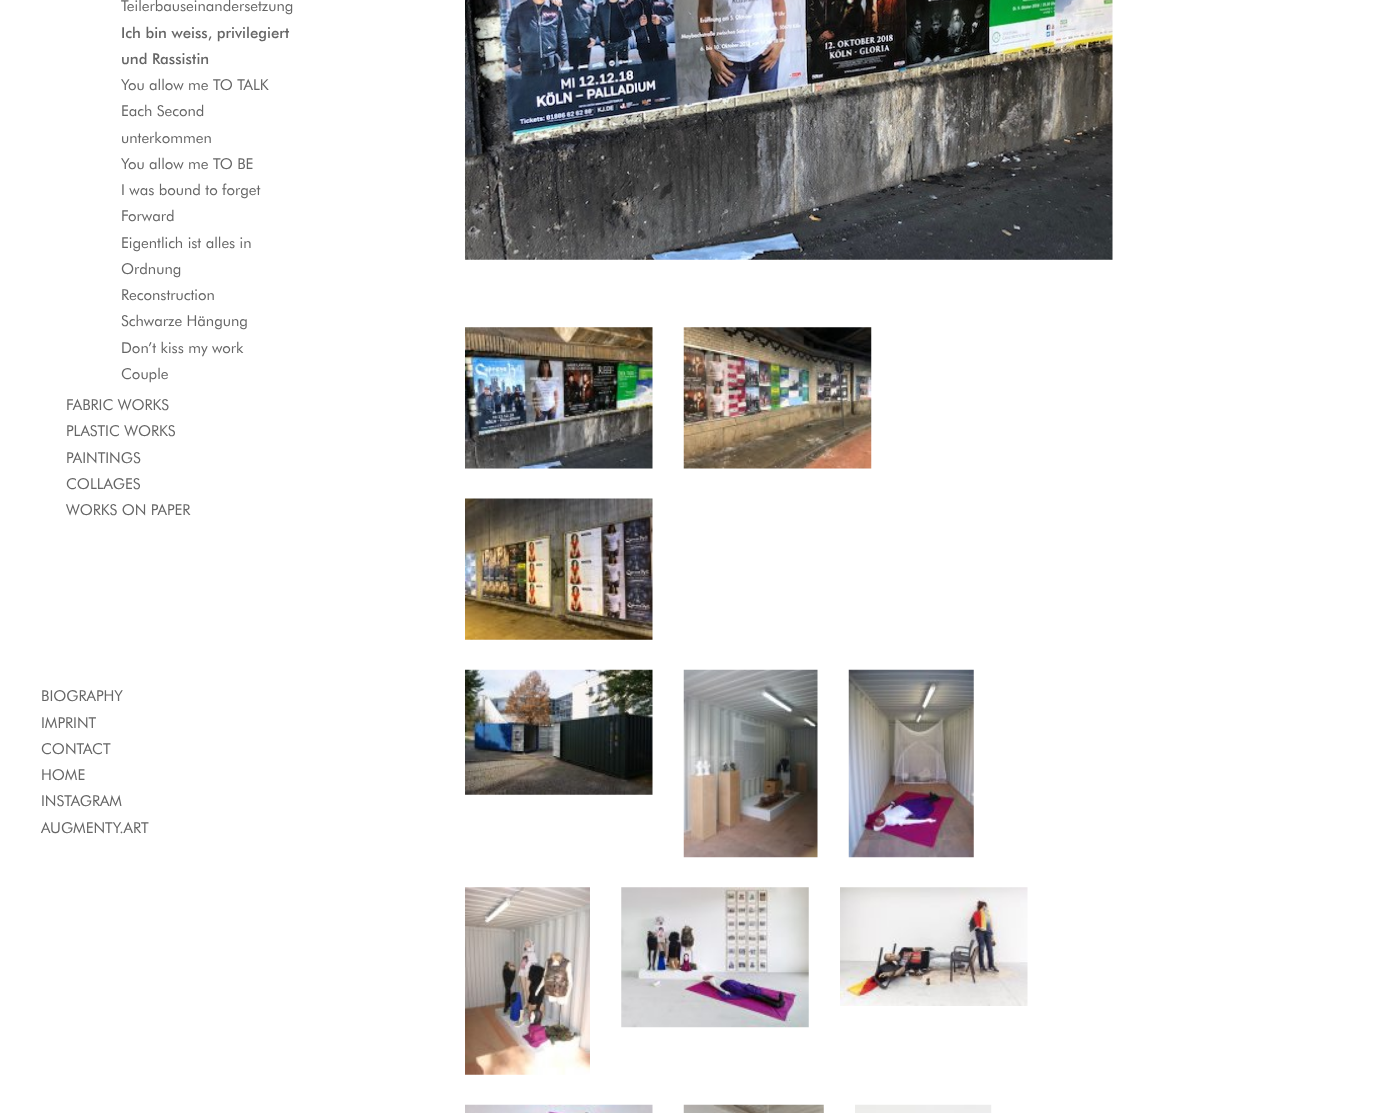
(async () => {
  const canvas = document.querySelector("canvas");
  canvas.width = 1393;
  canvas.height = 1113;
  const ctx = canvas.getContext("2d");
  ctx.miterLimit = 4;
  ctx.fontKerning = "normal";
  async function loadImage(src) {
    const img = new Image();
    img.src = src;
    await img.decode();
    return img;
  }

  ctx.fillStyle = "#ffffff";
  ctx.fillRect(0, 0, 1393, 1113);
  ctx.drawImage(await loadImage("img/1.png"), 465, 0, 648, 260);
  ctx.drawImage(await loadImage("img/2.png"), 465, 327, 188, 142);
  ctx.drawImage(await loadImage("img/3.png"), 683, 327, 189, 142);
  ctx.drawImage(await loadImage("img/4.png"), 465, 498, 188, 142);
  ctx.drawImage(await loadImage("img/5.png"), 465, 669, 188, 126);
  ctx.drawImage(await loadImage("img/6.png"), 683, 669, 135, 189);
  ctx.drawImage(await loadImage("img/7.png"), 848, 669, 126, 189);
  ctx.drawImage(await loadImage("img/8.png"), 465, 887, 125, 188);
  ctx.drawImage(await loadImage("img/9.png"), 621, 887, 188, 141);
  ctx.drawImage(await loadImage("img/10.png"), 840, 887, 188, 119);
  ctx.drawImage(await loadImage("img/11.png"), 465, 1104, 188, 9);
  ctx.drawImage(await loadImage("img/12.png"), 683, 1104, 141, 9);
  ctx.drawImage(await loadImage("img/13.png"), 855, 1104, 137, 9);
  ctx.font = "15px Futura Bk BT";
  ctx.fillStyle = "#666666";
  ctx.fillText("Teilerbauseinandersetzung", 121, 11);
  ctx.font = "500 15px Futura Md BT";
  ctx.fillText("Ich bin weiss, privilegiert", 121, 38);
  ctx.fillText("und Rassistin", 121, 64);
  ctx.font = "15px Futura Bk BT";
  for (const [text, x, y] of [
    ["You allow me TO TALK", 121, 90],
    ["Each Second", 121, 116],
    ["unterkommen", 121, 143],
    ["You allow me TO BE", 121, 169],
    ["I was bound to forget", 121, 195],
    ["Forward", 121, 221],
    ["Eigentlich ist alles in", 121, 248],
    ["Ordnung", 121, 274],
    ["Reconstruction", 121, 300],
    ["Schwarze Hängung", 121, 326],
    ["Don’t kiss my work", 121, 353],
    ["Couple", 121, 379],
    ["FABRIC WORKS", 66, 410],
    ["PLASTIC WORKS", 66, 436],
    ["PAINTINGS", 66, 463],
    ["COLLAGES", 66, 489],
    ["WORKS ON PAPER", 66, 515],
    ["BIOGRAPHY", 41, 701],
    ["IMPRINT", 41, 728],
    ["CONTACT", 41, 754],
    ["HOME", 41, 780],
    ["INSTAGRAM", 41, 806],
    ["AUGMENTY.ART", 41, 833],
  ]) {
    ctx.fillText(text, x, y);
  }
})();
